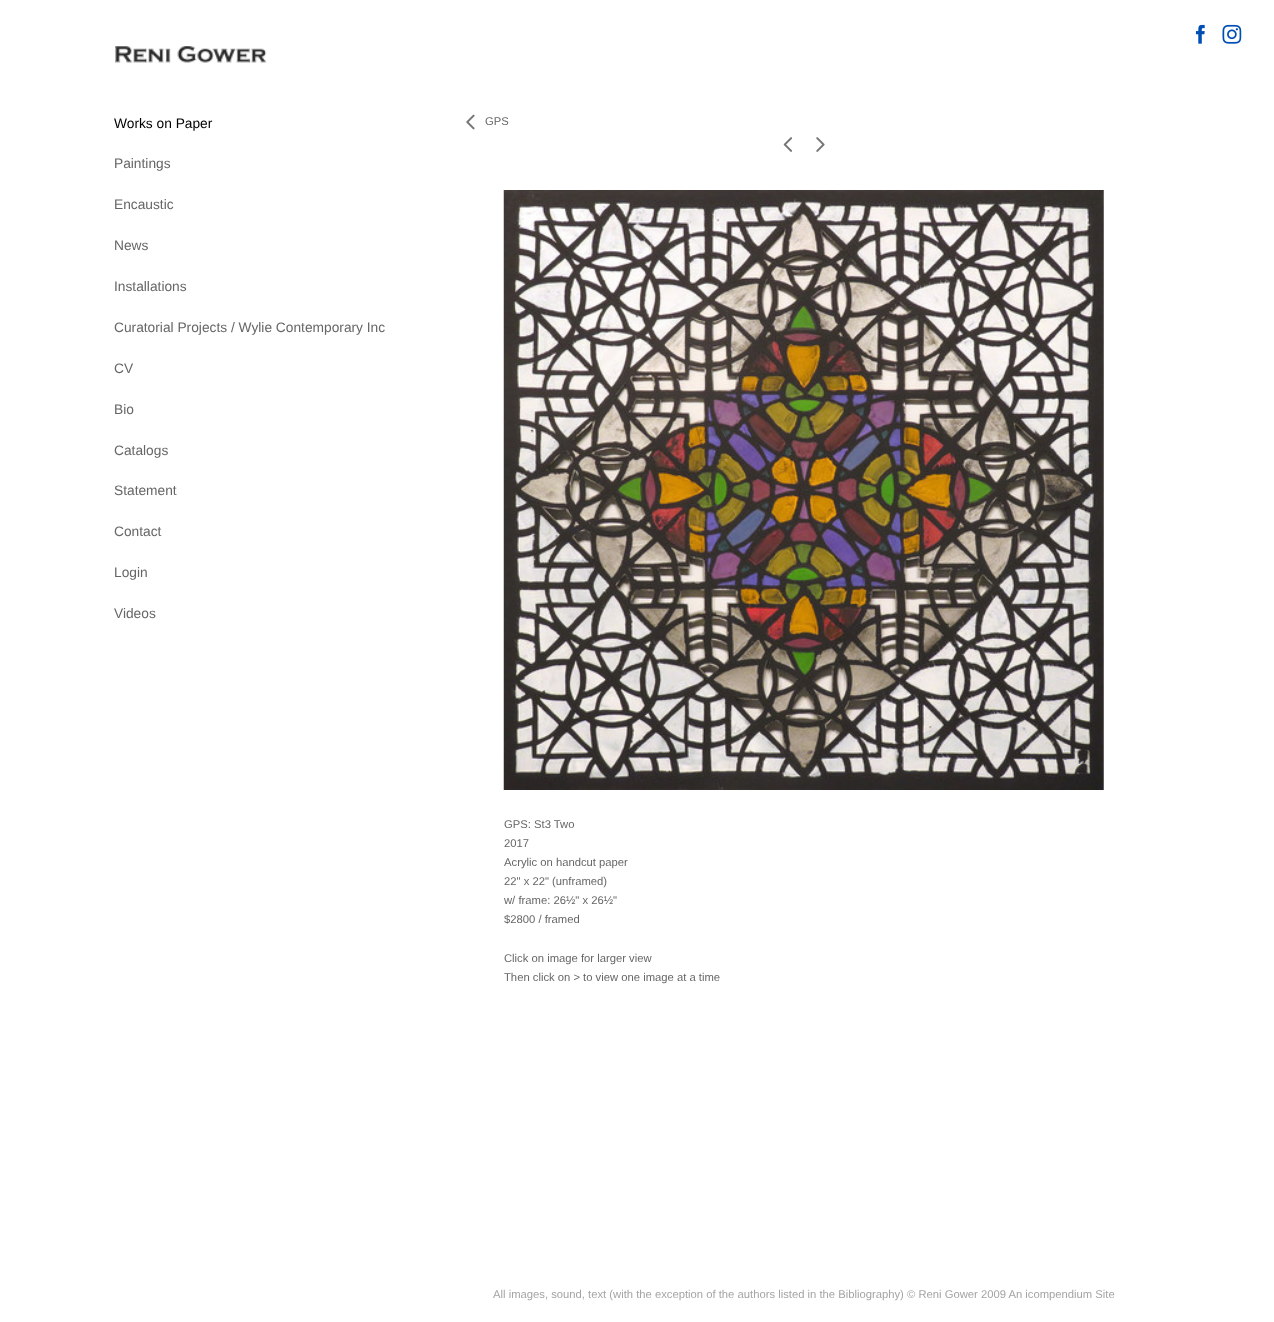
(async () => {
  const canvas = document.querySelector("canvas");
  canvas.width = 1274;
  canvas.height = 1322;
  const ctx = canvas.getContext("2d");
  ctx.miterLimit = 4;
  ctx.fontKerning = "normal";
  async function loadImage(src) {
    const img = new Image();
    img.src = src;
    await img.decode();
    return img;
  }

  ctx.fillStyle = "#ffffff";
  ctx.fillRect(0, 0, 1274, 1322);
  ctx.drawImage(await loadImage("img/1.png"), 1195, 24, 10, 20);
  ctx.drawImage(await loadImage("img/2.png"), 1222, 24, 20, 20);
  ctx.drawImage(await loadImage("img/3.png"), 115, 46, 152, 17);
  ctx.drawImage(await loadImage("img/4.png"), 466, 114, 9, 16);
  ctx.drawImage(await loadImage("img/5.png"), 783, 137, 10, 15);
  ctx.drawImage(await loadImage("img/6.png"), 816, 137, 9, 15);
  ctx.drawImage(await loadImage("img/7.png"), 503, 190, 601, 600);
  ctx.font = "13.75px Liberation Sans";
  ctx.fillStyle = "#000000";
  ctx.fillText("Works on Paper", 114, 128);
  ctx.fillStyle = "#666666";
  for (const [text, x, y] of [
    ["Paintings", 114, 168],
    ["Encaustic", 114, 209],
    ["News", 114, 250],
    ["Installations", 114, 291],
    ["Curatorial Projects / Wylie Contemporary Inc", 114, 332],
    ["CV", 114, 373],
    ["Bio", 114, 414],
    ["Catalogs", 114, 455],
    ["Statement", 114, 495],
    ["Contact", 114, 536],
    ["Login", 114, 577],
    ["Videos", 114, 618],
  ]) {
    ctx.fillText(text, x, y);
  }
  ctx.font = "11.25px Liberation Sans";
  for (const [text, x, y] of [
    ["GPS", 485, 125],
    ["GPS: St3 Two", 504, 828],
    ["2017", 504, 847],
    ["Acrylic on handcut paper", 504, 866],
    ["22\" x 22\" (unframed)", 504, 885],
    ["w/ frame: 26½\" x 26½\"", 504, 904],
    ["$2800 / framed", 504, 923],
    ["Click on image for larger view", 504, 962],
    ["Then click on > to view one image at a time", 504, 981],
  ]) {
    ctx.fillText(text, x, y);
  }
  ctx.fillStyle = "#a4a4a4";
  ctx.fillText("All images, sound, text (with the exception of the authors listed in the Bibliography) © Reni Gower 2009 An icompendium Site", 493, 1298);
})();
